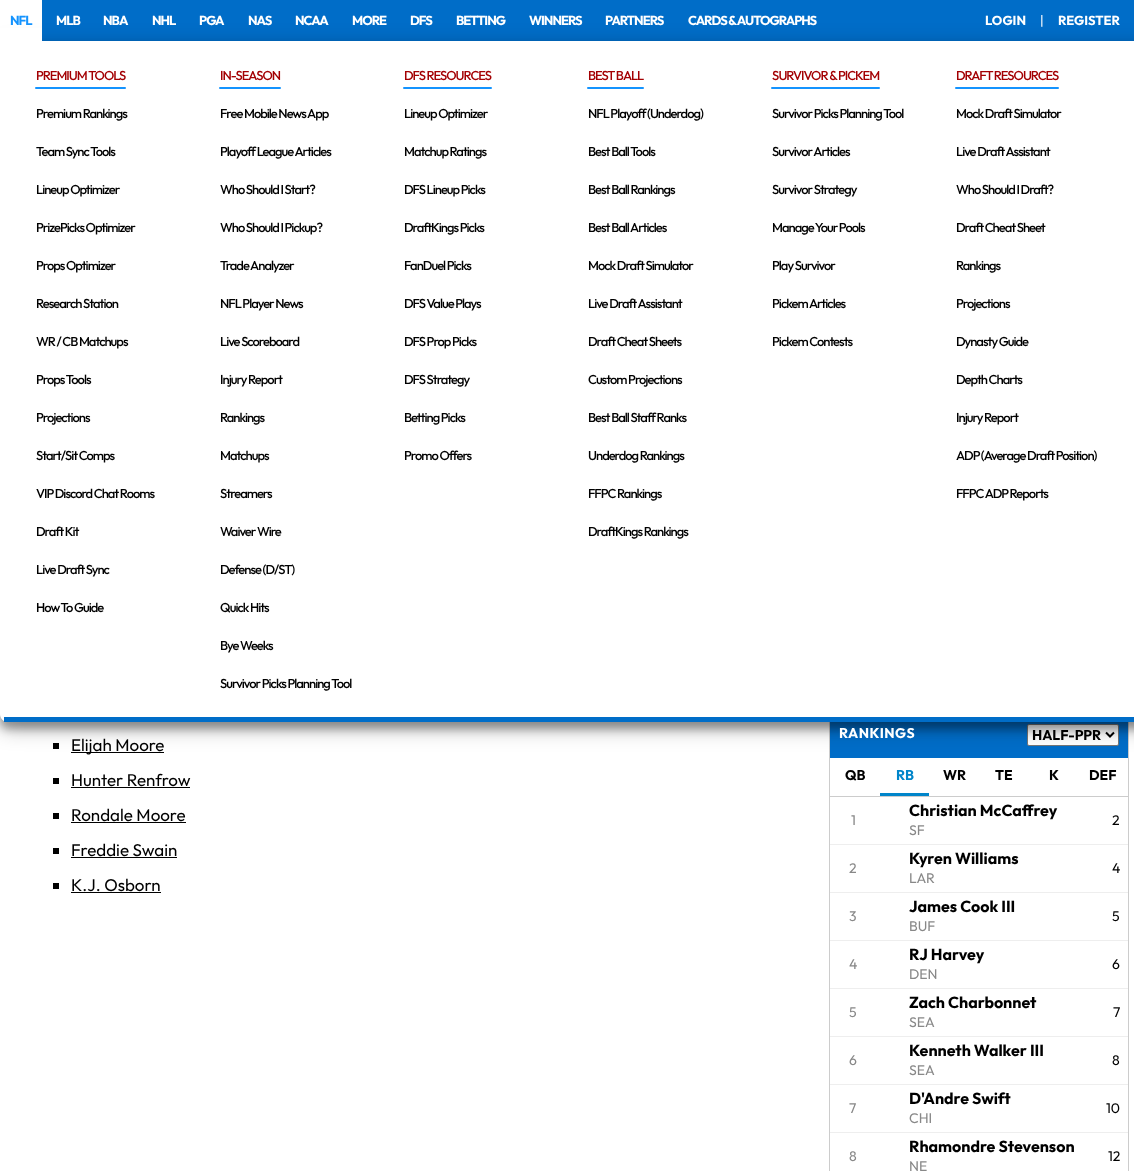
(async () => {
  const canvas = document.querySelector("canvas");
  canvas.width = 1134;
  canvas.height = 1171;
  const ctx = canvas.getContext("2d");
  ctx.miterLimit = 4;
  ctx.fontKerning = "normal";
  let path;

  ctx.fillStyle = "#ffffff";
  ctx.fillRect(0, 0, 1134, 1171);
  for (const [x, y, w, h, color] of [
    [42, 0, 1092, 41, "#006dc8"],
    [53, 743, 6, 6, "#000000"],
    [71, 752, 93, 1, "#000000"],
  ]) {
    ctx.fillStyle = color;
    ctx.fillRect(x, y, w, h);
  }
  ctx.strokeStyle = "#cccccc";
  ctx.strokeRect(829.5, 709.5, 299, 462);
  ctx.fillStyle = "#006dc8";
  ctx.fillRect(830, 722, 298, 36);
  ctx.fillStyle = "#ffffff";
  ctx.beginPath();
  ctx.roundRect(1027.5, 724.5, 91, 21, 1.5);
  ctx.fill();
  ctx.strokeStyle = "#767676";
  ctx.stroke();
  path = new Path2D("M1106 732.5L1110 736.5L1114 732.5");
  ctx.strokeStyle = "#000000";
  ctx.lineWidth = 2;
  ctx.stroke(path);
  ctx.fillStyle = "rgba(0, 0, 0, 0.3)";
  ctx.filter = "blur(10.5px)";
  ctx.beginPath();
  ctx.roundRect(0, 47, 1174, 681, 8);
  ctx.fill();
  ctx.filter = "none";
  ctx.filter = "blur(4.5px)";
  ctx.beginPath();
  ctx.roundRect(0, 48, 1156, 681, 8);
  ctx.fill();
  ctx.filter = "none";
  ctx.fillStyle = "#ffffff";
  ctx.fillRect(0, 28, 42, 13);
  path = new Path2D("M0 41H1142V714C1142 718.5 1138.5 722 1134 722H8C3.5 722 0 718.5 0 714Z");
  ctx.fill(path);
  ctx.fillStyle = "#006dc8";
  ctx.fillRect(4, 717, 1130, 5);
  ctx.fillStyle = "#1493fe";
  ctx.beginPath();
  ctx.roundRect(35, 87, 91, 2, 1);
  ctx.fill();
  ctx.beginPath();
  ctx.roundRect(219, 87, 62, 2, 1);
  ctx.fill();
  ctx.beginPath();
  ctx.roundRect(403, 87, 89, 2, 1);
  ctx.fill();
  ctx.beginPath();
  ctx.roundRect(587, 87, 57, 2, 1);
  ctx.fill();
  ctx.beginPath();
  ctx.roundRect(771, 87, 109, 2, 1);
  ctx.fill();
  ctx.beginPath();
  ctx.roundRect(955, 87, 104, 2, 1);
  ctx.fill();
  for (const [x, y, w, h, color] of [
    [53, 778, 6, 6, "#000000"],
    [71, 787, 119, 1, "#000000"],
    [53, 813, 6, 6, "#000000"],
    [71, 822, 115, 1, "#000000"],
    [53, 848, 6, 6, "#000000"],
    [71, 857, 106, 1, "#000000"],
    [53, 883, 6, 6, "#000000"],
    [71, 892, 90, 1, "#000000"],
    [830, 796, 298, 1, "#cccccc"],
    [880, 793, 49, 3, "#0085ca"],
    [830, 844, 298, 1, "#eeeeee"],
    [830, 892, 298, 1, "#eeeeee"],
    [830, 940, 298, 1, "#eeeeee"],
    [830, 988, 298, 1, "#eeeeee"],
    [830, 1036, 298, 1, "#eeeeee"],
    [830, 1084, 298, 1, "#eeeeee"],
    [830, 1132, 298, 1, "#eeeeee"],
  ]) {
    ctx.fillStyle = color;
    ctx.fillRect(x, y, w, h);
  }
  ctx.letterSpacing = "-1px";
  ctx.font = "bold 13px Outfit";
  ctx.fillStyle = "#1493fe";
  ctx.fillText("NFL", 10, 25);
  ctx.font = "500 13px Outfit";
  ctx.fillStyle = "#a30003";
  ctx.fillText("PREMIUM TOOLS", 36, 80);
  ctx.fillStyle = "#000000";
  for (const [text, x, y] of [
    ["Premium Rankings", 36, 118],
    ["Team Sync Tools", 36, 156],
    ["Lineup Optimizer", 36, 194],
    ["PrizePicks Optimizer", 36, 232],
    ["Props Optimizer", 36, 270],
    ["Research Station", 36, 308],
    ["WR / CB Matchups", 36, 346],
    ["Props Tools", 36, 384],
    ["Projections", 36, 422],
    ["Start/Sit Comps", 36, 460],
    ["VIP Discord Chat Rooms", 36, 498],
    ["Draft Kit", 36, 536],
    ["Live Draft Sync", 36, 574],
    ["How To Guide", 36, 612],
  ]) {
    ctx.fillText(text, x, y);
  }
  ctx.fillStyle = "#a30003";
  ctx.fillText("IN-SEASON", 220, 80);
  ctx.fillStyle = "#000000";
  for (const [text, x, y] of [
    ["Free Mobile News App", 220, 118],
    ["Playoff League Articles", 220, 156],
    ["Who Should I Start?", 220, 194],
    ["Who Should I Pickup?", 220, 232],
    ["Trade Analyzer", 220, 270],
    ["NFL Player News", 220, 308],
    ["Live Scoreboard", 220, 346],
    ["Injury Report", 220, 384],
    ["Rankings", 220, 422],
    ["Matchups", 220, 460],
    ["Streamers", 220, 498],
    ["Waiver Wire", 220, 536],
    ["Defense (D/ST)", 220, 574],
    ["Quick Hits", 220, 612],
    ["Bye Weeks", 220, 650],
    ["Survivor Picks Planning Tool", 220, 688],
  ]) {
    ctx.fillText(text, x, y);
  }
  ctx.fillStyle = "#a30003";
  ctx.fillText("DFS RESOURCES", 404, 80);
  ctx.fillStyle = "#000000";
  for (const [text, x, y] of [
    ["Lineup Optimizer", 404, 118],
    ["Matchup Ratings", 404, 156],
    ["DFS Lineup Picks", 404, 194],
    ["DraftKings Picks", 404, 232],
    ["FanDuel Picks", 404, 270],
    ["DFS Value Plays", 404, 308],
    ["DFS Prop Picks", 404, 346],
    ["DFS Strategy", 404, 384],
    ["Betting Picks", 404, 422],
    ["Promo Offers", 404, 460],
  ]) {
    ctx.fillText(text, x, y);
  }
  ctx.fillStyle = "#a30003";
  ctx.fillText("BEST BALL", 588, 80);
  ctx.fillStyle = "#000000";
  for (const [text, x, y] of [
    ["NFL Playoff (Underdog)", 588, 118],
    ["Best Ball Tools", 588, 156],
    ["Best Ball Rankings", 588, 194],
    ["Best Ball Articles", 588, 232],
    ["Mock Draft Simulator", 588, 270],
    ["Live Draft Assistant", 588, 308],
    ["Draft Cheat Sheets", 588, 346],
    ["Custom Projections", 588, 384],
    ["Best Ball Staff Ranks", 588, 422],
    ["Underdog Rankings", 588, 460],
    ["FFPC Rankings", 588, 498],
    ["DraftKings Rankings", 588, 536],
  ]) {
    ctx.fillText(text, x, y);
  }
  ctx.fillStyle = "#a30003";
  ctx.fillText("SURVIVOR & PICKEM", 772, 80);
  ctx.fillStyle = "#000000";
  for (const [text, x, y] of [
    ["Survivor Picks Planning Tool", 772, 118],
    ["Survivor Articles", 772, 156],
    ["Survivor Strategy", 772, 194],
    ["Manage Your Pools", 772, 232],
    ["Play Survivor", 772, 270],
    ["Pickem Articles", 772, 308],
    ["Pickem Contests", 772, 346],
  ]) {
    ctx.fillText(text, x, y);
  }
  ctx.fillStyle = "#a30003";
  ctx.fillText("DRAFT RESOURCES", 956, 80);
  ctx.fillStyle = "#000000";
  for (const [text, x, y] of [
    ["Mock Draft Simulator", 956, 118],
    ["Live Draft Assistant", 956, 156],
    ["Who Should I Draft?", 956, 194],
    ["Draft Cheat Sheet", 956, 232],
    ["Rankings", 956, 270],
    ["Projections", 956, 308],
    ["Dynasty Guide", 956, 346],
    ["Depth Charts", 956, 384],
    ["Injury Report", 956, 422],
    ["ADP (Average Draft Position)", 956, 460],
    ["FFPC ADP Reports", 956, 498],
  ]) {
    ctx.fillText(text, x, y);
  }
  ctx.font = "bold 13px Outfit";
  ctx.fillStyle = "#ffffff";
  for (const [text, x, y] of [
    ["MLB", 56, 25],
    ["NBA", 103, 25],
    ["NHL", 152, 25],
    ["PGA", 199, 25],
    ["NAS", 248, 25],
    ["NCAA", 295, 25],
    ["MORE", 352, 25],
    ["DFS", 410, 25],
    ["BETTING", 456, 25],
    ["WINNERS", 529, 25],
    ["PARTNERS", 605, 25],
    ["CARDS & AUTOGRAPHS", 688, 25],
  ]) {
    ctx.fillText(text, x, y);
  }
  ctx.letterSpacing = "0px";
  ctx.fillText("LOGIN", 985, 25);
  ctx.font = "13px Outfit";
  ctx.fillText("|", 1040, 25);
  ctx.font = "bold 13px Outfit";
  ctx.fillText("REGISTER", 1058, 25);
  ctx.font = "17px Outfit";
  ctx.fillStyle = "#000000";
  for (const [text, x, y] of [
    ["Elijah Moore", 71, 751],
    ["Hunter Renfrow", 71, 786],
    ["Rondale Moore", 71, 821],
    ["Freddie Swain", 71, 856],
    ["K.J. Osborn", 71, 891],
  ]) {
    ctx.fillText(text, x, y);
  }
  ctx.letterSpacing = "0.5px";
  ctx.font = "bold 14px Outfit";
  ctx.fillStyle = "#ffffff";
  ctx.fillText("RANKINGS", 839, 738);
  ctx.letterSpacing = "0px";
  ctx.fillStyle = "#000000";
  ctx.fillText("HALF-PPR", 1032, 740);
  ctx.fillText("QB", 845, 780);
  ctx.fillStyle = "#0085ca";
  ctx.fillText("RB", 896, 780);
  ctx.fillStyle = "#000000";
  for (const [text, x, y] of [
    ["WR", 943, 780],
    ["TE", 995, 780],
    ["K", 1049, 780],
    ["DEF", 1089, 780],
  ]) {
    ctx.fillText(text, x, y);
  }
  ctx.font = "14px Outfit";
  ctx.fillStyle = "#888888";
  ctx.fillText("1", 851, 825);
  ctx.font = "bold 16px Outfit";
  ctx.fillStyle = "#000000";
  ctx.fillText("Christian McCaffrey", 909, 816);
  ctx.font = "14px Outfit";
  ctx.fillStyle = "#888888";
  ctx.fillText("SF", 909, 835);
  ctx.fillStyle = "#000000";
  ctx.fillText("2", 1112, 825);
  ctx.fillStyle = "#888888";
  ctx.fillText("2", 849, 873);
  ctx.font = "bold 16px Outfit";
  ctx.fillStyle = "#000000";
  ctx.fillText("Kyren Williams", 909, 864);
  ctx.font = "14px Outfit";
  ctx.fillStyle = "#888888";
  ctx.fillText("LAR", 909, 883);
  ctx.fillStyle = "#000000";
  ctx.fillText("4", 1112, 873);
  ctx.fillStyle = "#888888";
  ctx.fillText("3", 849, 921);
  ctx.font = "bold 16px Outfit";
  ctx.fillStyle = "#000000";
  ctx.fillText("James Cook III", 909, 912);
  ctx.font = "14px Outfit";
  ctx.fillStyle = "#888888";
  ctx.fillText("BUF", 909, 931);
  ctx.fillStyle = "#000000";
  ctx.fillText("5", 1112, 921);
  ctx.fillStyle = "#888888";
  ctx.fillText("4", 849, 969);
  ctx.font = "bold 16px Outfit";
  ctx.fillStyle = "#000000";
  ctx.fillText("RJ Harvey", 909, 960);
  ctx.font = "14px Outfit";
  ctx.fillStyle = "#888888";
  ctx.fillText("DEN", 909, 979);
  ctx.fillStyle = "#000000";
  ctx.fillText("6", 1112, 969);
  ctx.fillStyle = "#888888";
  ctx.fillText("5", 849, 1017);
  ctx.font = "bold 16px Outfit";
  ctx.fillStyle = "#000000";
  ctx.fillText("Zach Charbonnet", 909, 1008);
  ctx.font = "14px Outfit";
  ctx.fillStyle = "#888888";
  ctx.fillText("SEA", 909, 1027);
  ctx.fillStyle = "#000000";
  ctx.fillText("7", 1113, 1017);
  ctx.fillStyle = "#888888";
  ctx.fillText("6", 849, 1065);
  ctx.font = "bold 16px Outfit";
  ctx.fillStyle = "#000000";
  ctx.fillText("Kenneth Walker III", 909, 1056);
  ctx.font = "14px Outfit";
  ctx.fillStyle = "#888888";
  ctx.fillText("SEA", 909, 1075);
  ctx.fillStyle = "#000000";
  ctx.fillText("8", 1112, 1065);
  ctx.fillStyle = "#888888";
  ctx.fillText("7", 849, 1113);
  ctx.font = "bold 16px Outfit";
  ctx.fillStyle = "#000000";
  ctx.fillText("D'Andre Swift", 909, 1104);
  ctx.font = "14px Outfit";
  ctx.fillStyle = "#888888";
  ctx.fillText("CHI", 909, 1123);
  ctx.fillStyle = "#000000";
  ctx.fillText("10", 1106, 1113);
  ctx.fillStyle = "#888888";
  ctx.fillText("8", 849, 1161);
  ctx.font = "bold 16px Outfit";
  ctx.fillStyle = "#000000";
  ctx.fillText("Rhamondre Stevenson", 909, 1152);
  ctx.font = "14px Outfit";
  ctx.fillStyle = "#888888";
  ctx.fillText("NE", 909, 1171);
  ctx.fillStyle = "#000000";
  ctx.fillText("12", 1108, 1161);
})();
